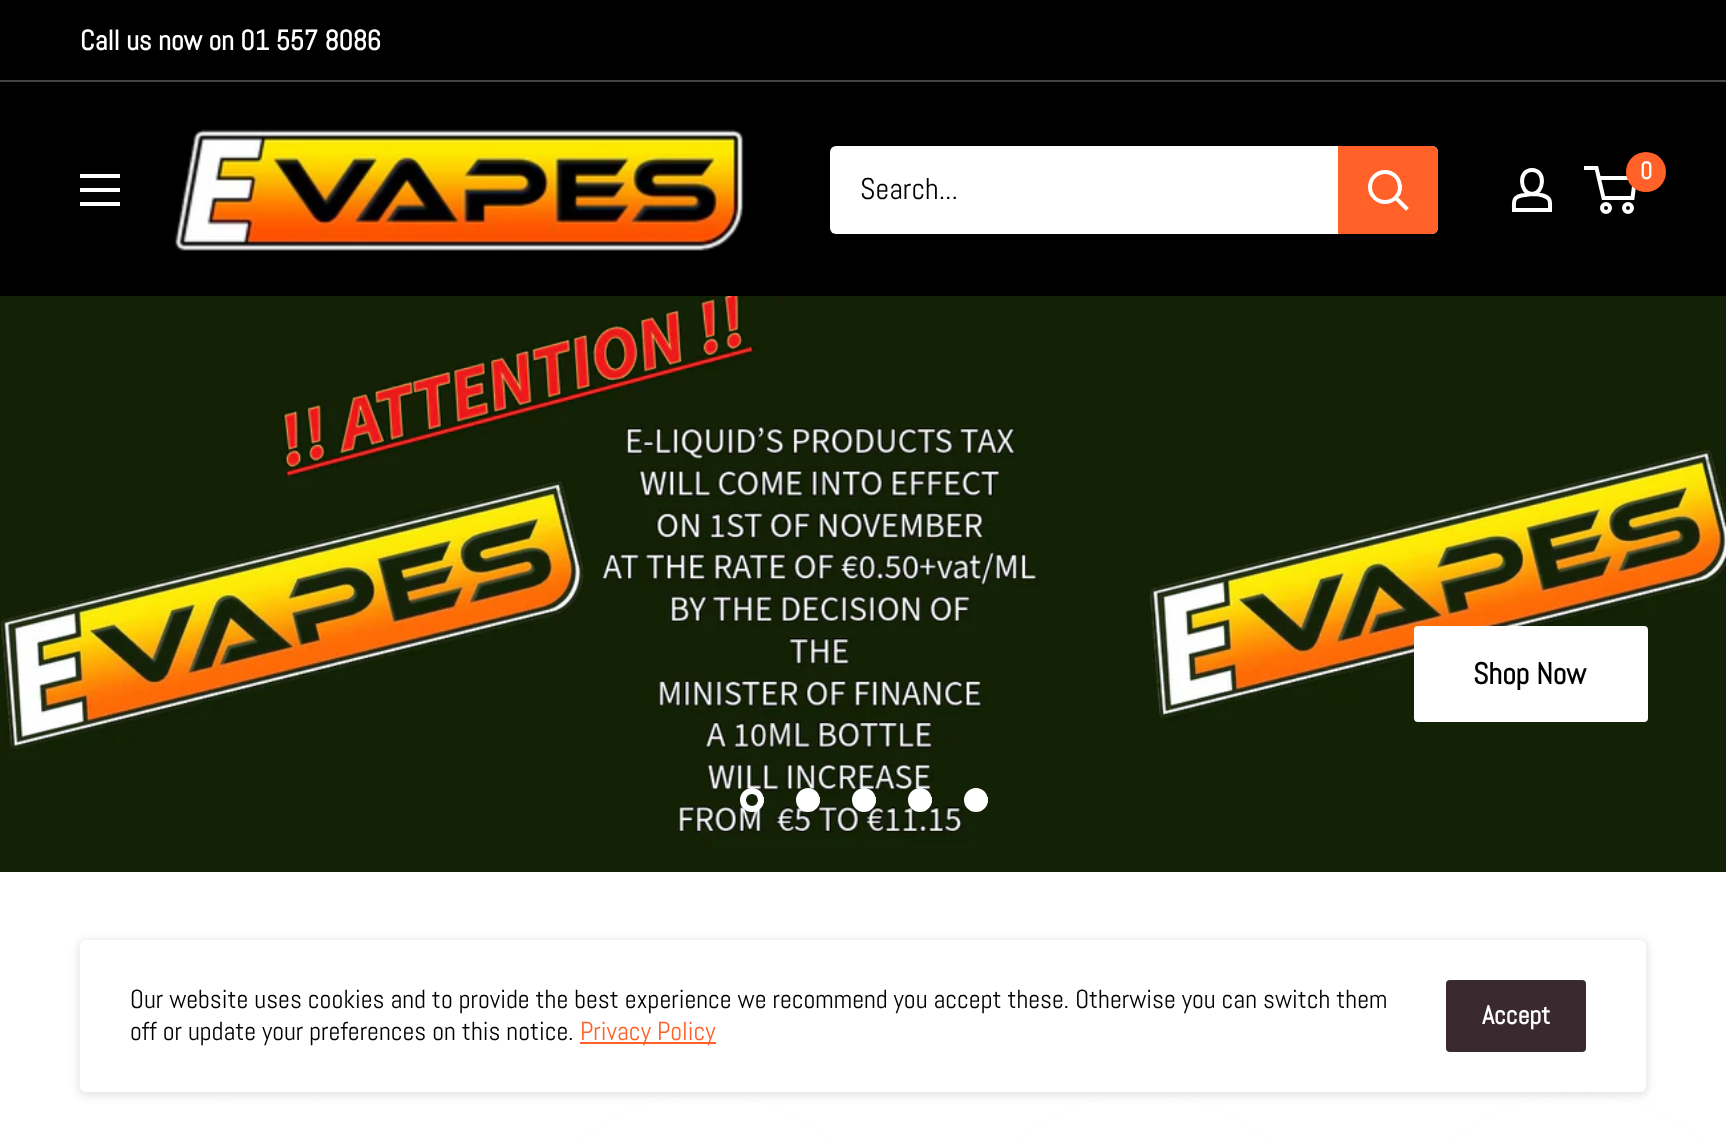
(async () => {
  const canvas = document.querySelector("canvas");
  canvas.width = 1726;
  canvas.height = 1142;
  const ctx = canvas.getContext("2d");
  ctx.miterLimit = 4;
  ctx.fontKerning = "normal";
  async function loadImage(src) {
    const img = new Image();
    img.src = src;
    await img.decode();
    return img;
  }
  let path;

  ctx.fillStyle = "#ffffff";
  ctx.fillRect(0, 0, 1726, 1142);
  for (const [x, y, w, h, color] of [
    [0, 0, 1726, 80, "#000000"],
    [0, 80, 1726, 2, "#464442"],
    [0, 82, 1726, 214, "#000000"],
  ]) {
    ctx.fillStyle = color;
    ctx.fillRect(x, y, w, h);
  }
  ctx.drawImage(await loadImage("img/1.png"), 175, 129, 569, 122);
  path = new Path2D("M1532 194C1536 194 1539.5 194.5 1543 195.5C1551.5 198 1550 202.5 1550 210H1514C1514 202 1512.5 197.5 1521.5 195.5ZM1532 194C1520 194 1517.5 170 1532 170C1546.5 170 1544 194 1532 194Z");
  ctx.strokeStyle = "#ffffff";
  ctx.lineWidth = 4;
  ctx.stroke(path);
  ctx.beginPath();
  ctx.arc(1606, 208, 4, 0, Math.PI * 2);
  ctx.stroke();
  ctx.beginPath();
  ctx.arc(1628, 208, 4, 0, Math.PI * 2);
  ctx.stroke();
  path = new Path2D("M1598.5 178H1635L1632.5 198H1603.5L1596.5 168H1584");
  ctx.stroke(path);
  ctx.fillStyle = "#ff6128";
  ctx.beginPath();
  ctx.arc(1646, 172, 20, 0, Math.PI * 2);
  ctx.fill();
  ctx.fillStyle = "#ffffff";
  path = new Path2D("M80 202H120V206H80ZM80 174H120V178H80ZM80 188H120V192H80Z");
  ctx.fill(path, "evenodd");
  ctx.beginPath();
  ctx.roundRect(830, 146, 608, 88, 6);
  ctx.fill();
  ctx.fillStyle = "#ff6128";
  ctx.beginPath();
  ctx.roundRect(1338, 146, 100, 88, [0, 6, 6, 0]);
  ctx.fill();
  path = new Path2D("M1406 208L1396 198");
  ctx.lineCap = "square";
  ctx.stroke(path);
  ctx.beginPath();
  ctx.arc(1385, 187, 15, 0, Math.PI * 2);
  ctx.stroke();
  ctx.drawImage(await loadImage("img/2.png"), 0, 296, 1726, 576);
  ctx.fillStyle = "#ffffff";
  ctx.beginPath();
  ctx.roundRect(1414, 626, 234, 96, 4);
  ctx.fill();
  ctx.beginPath();
  ctx.arc(752, 800, 9, 0, Math.PI * 2);
  ctx.lineWidth = 6;
  ctx.stroke();
  ctx.beginPath();
  ctx.arc(808, 800, 9, 0, Math.PI * 2);
  ctx.fill();
  ctx.stroke();
  ctx.beginPath();
  ctx.arc(864, 800, 9, 0, Math.PI * 2);
  ctx.fill();
  ctx.stroke();
  ctx.beginPath();
  ctx.arc(920, 800, 9, 0, Math.PI * 2);
  ctx.fill();
  ctx.stroke();
  ctx.beginPath();
  ctx.arc(976, 800, 9, 0, Math.PI * 2);
  ctx.fill();
  ctx.stroke();
  ctx.drawImage(await loadImage("img/3.png"), 145, 1094, 250, 47);
  ctx.drawImage(await loadImage("img/4.png"), 145, 1094, 250, 48);
  ctx.drawImage(await loadImage("img/5.png"), 580, 1094, 252, 48);
  ctx.drawImage(await loadImage("img/6.png"), 580, 1094, 252, 48);
  ctx.drawImage(await loadImage("img/7.png"), 1016, 1094, 252, 48);
  ctx.drawImage(await loadImage("img/8.png"), 1016, 1094, 251, 48);
  ctx.drawImage(await loadImage("img/9.png"), 1452, 1094, 252, 48);
  ctx.drawImage(await loadImage("img/10.png"), 1452, 1094, 252, 48);
  ctx.fillStyle = "rgba(0, 0, 0, 0.1)";
  ctx.filter = "blur(4px)";
  ctx.beginPath();
  ctx.roundRect(78, 940, 1570, 156, 8);
  ctx.fill();
  ctx.filter = "none";
  ctx.fillStyle = "#ffffff";
  ctx.beginPath();
  ctx.roundRect(80, 940, 1566, 152, 6);
  ctx.fill();
  ctx.fillStyle = "#ff6128";
  ctx.fillRect(580, 1042, 136, 2);
  ctx.fillStyle = "#3a2a2f";
  ctx.beginPath();
  ctx.roundRect(1446, 980, 140, 72, 4);
  ctx.fill();
  ctx.font = "bold 28px Abel";
  ctx.fillStyle = "#ffffff";
  ctx.fillText("Call us now on 01 557 8086", 80, 50);
  ctx.font = "bold 24px Abel";
  ctx.fillText("0", 1640, 179);
  ctx.font = "30px Abel";
  ctx.fillStyle = "#000000";
  ctx.fillText("Search...", 860, 199);
  ctx.font = "bold 30px Abel";
  ctx.fillText("Shop Now", 1473, 684);
  ctx.font = "26px Abel";
  ctx.fillText("Our website uses cookies and to provide the best experience we recommend you accept these. Otherwise you can switch them", 130, 1008);
  ctx.fillText("off or update your preferences on this notice.", 130, 1040);
  ctx.fillStyle = "#ff6128";
  ctx.fillText("Privacy Policy", 580, 1040);
  ctx.font = "bold 26px Abel";
  ctx.fillStyle = "#ffffff";
  ctx.fillText("Accept", 1482, 1024);
})();
